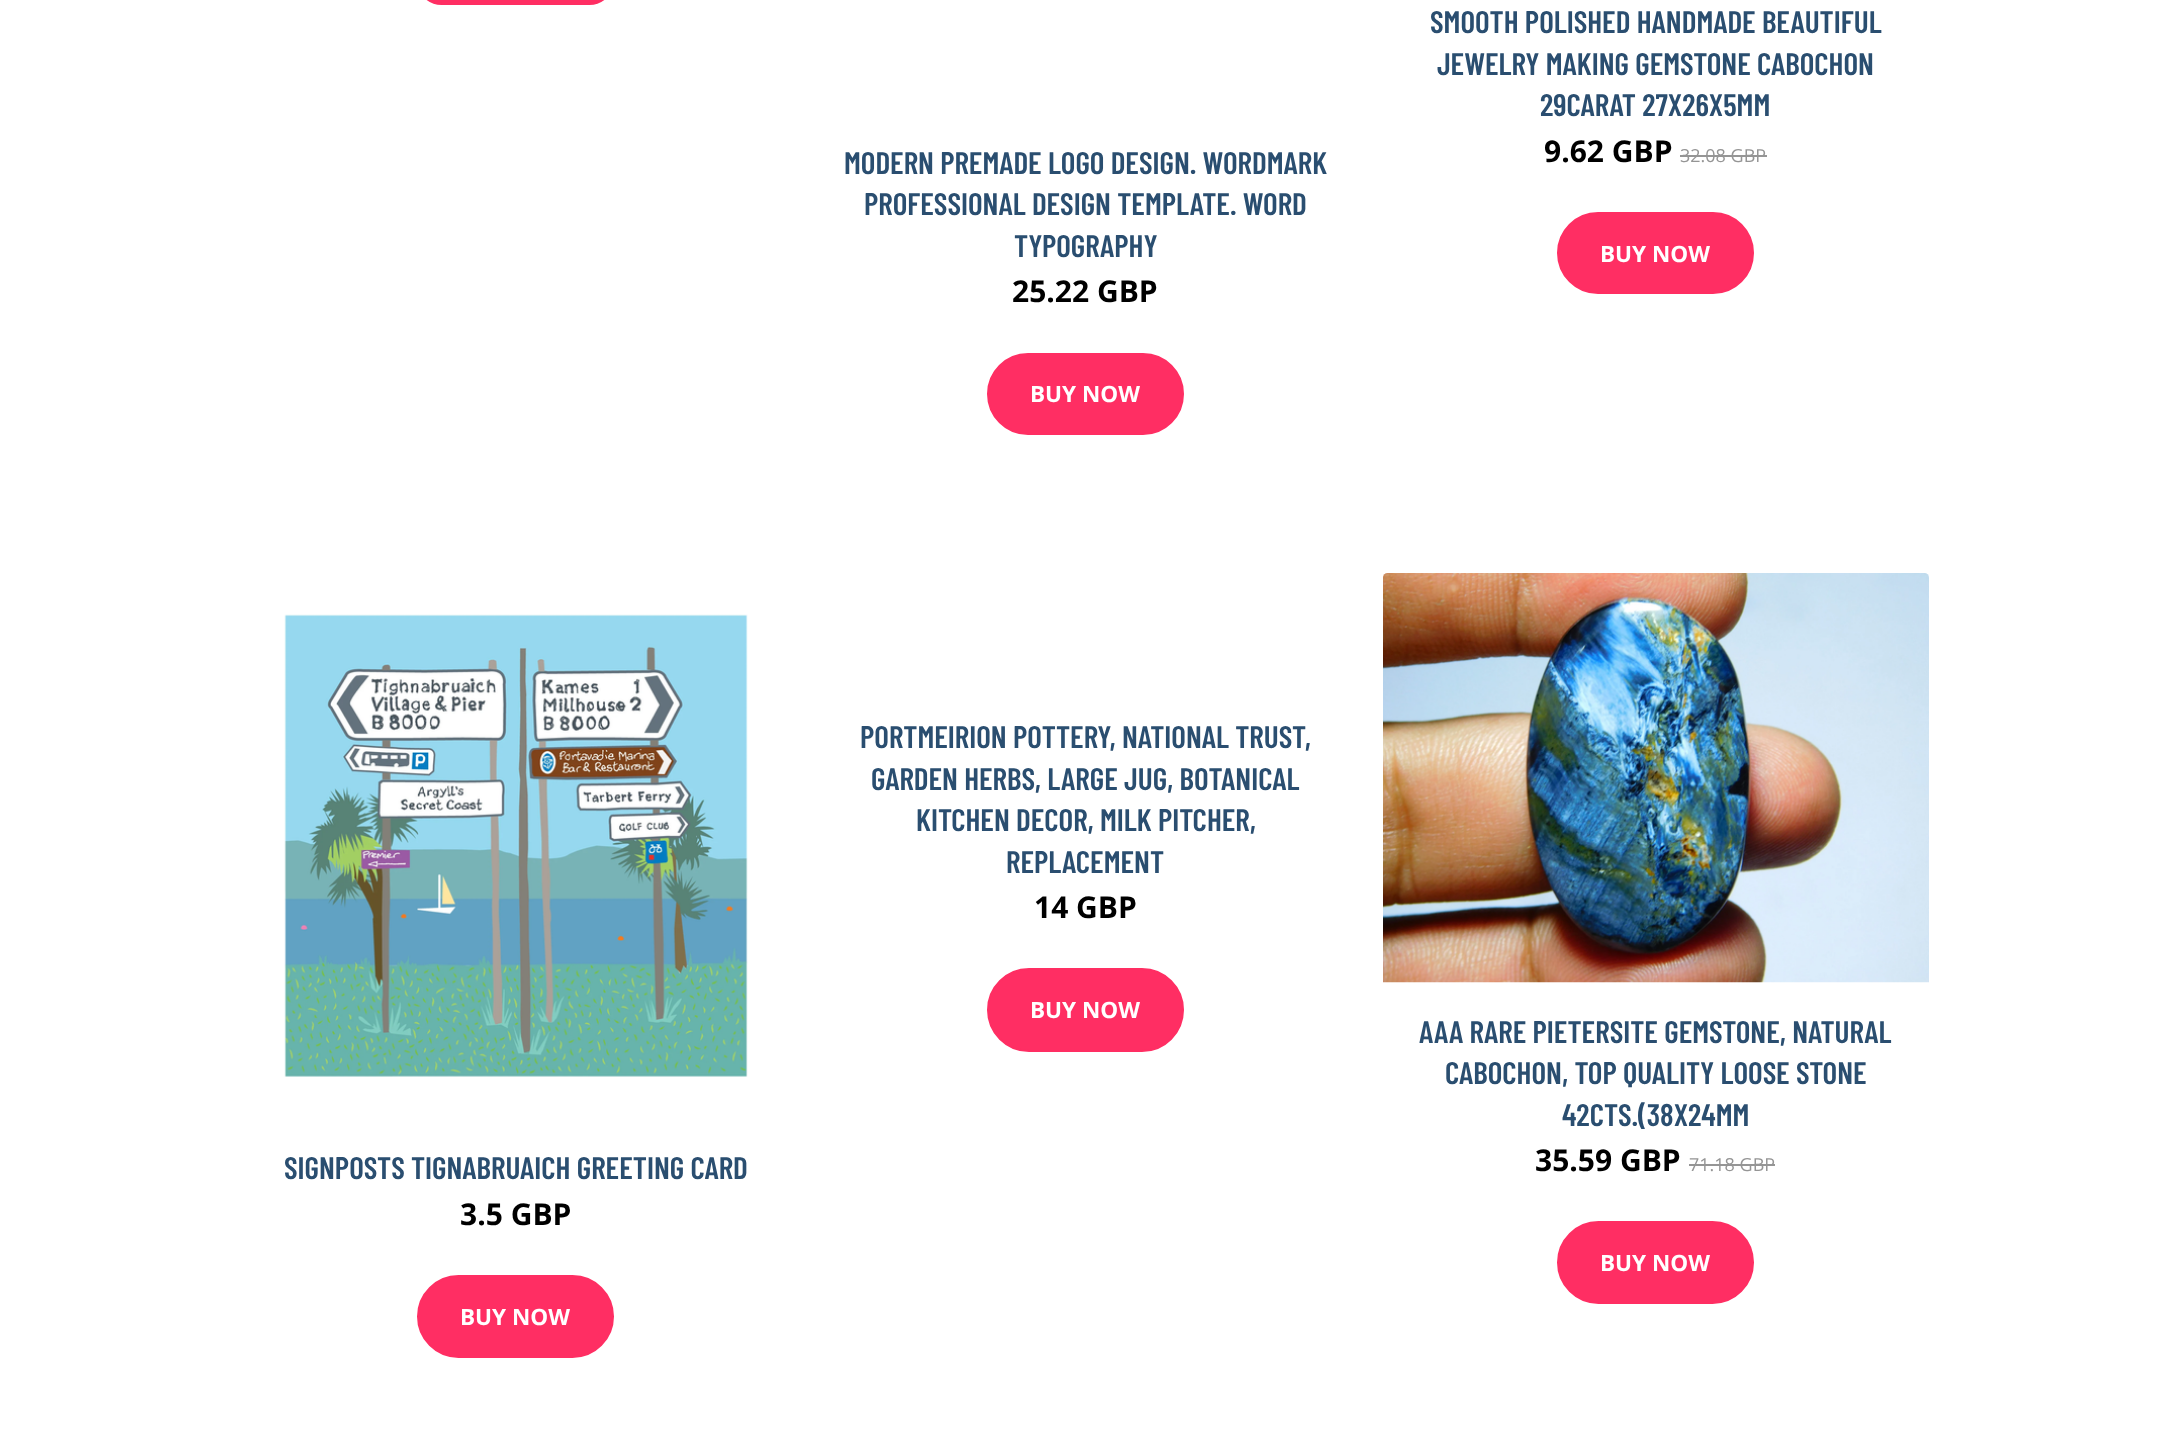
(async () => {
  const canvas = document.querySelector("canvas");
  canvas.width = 2170;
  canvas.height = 1447;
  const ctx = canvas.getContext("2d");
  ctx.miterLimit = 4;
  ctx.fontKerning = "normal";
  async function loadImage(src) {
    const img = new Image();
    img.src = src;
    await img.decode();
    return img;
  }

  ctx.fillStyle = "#ffffff";
  ctx.fillRect(0, 0, 2170, 1447);
  ctx.fillStyle = "#ff2e63";
  ctx.beginPath();
  ctx.roundRect(418, -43, 195, 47, 41);
  ctx.fill();
  ctx.strokeStyle = "#ff2e63";
  ctx.lineWidth = 2;
  ctx.stroke();
  ctx.beginPath();
  ctx.roundRect(988, 354, 195, 80, 40);
  ctx.fill();
  ctx.stroke();
  ctx.fillStyle = "#959595";
  ctx.fillRect(1680, 155, 87, 2);
  ctx.fillStyle = "#ff2e63";
  ctx.beginPath();
  ctx.roundRect(1558, 213, 195, 80, 40);
  ctx.fill();
  ctx.stroke();
  ctx.beginPath();
  ctx.roundRect(988, 969, 195, 82, 41);
  ctx.fill();
  ctx.stroke();
  ctx.drawImage(await loadImage("img/1.png"), 284, 614, 464, 463);
  ctx.beginPath();
  ctx.roundRect(418, 1276, 195, 81, 40.5);
  ctx.fill();
  ctx.stroke();
  ctx.drawImage(await loadImage("img/2.png"), 1383, 573, 546, 410);
  ctx.fillStyle = "#959595";
  ctx.fillRect(1689, 1164, 86, 2);
  ctx.fillStyle = "#ff2e63";
  ctx.beginPath();
  ctx.roundRect(1558, 1222, 195, 81, 40.5);
  ctx.fill();
  ctx.stroke();
  ctx.font = "600 31.25px Barlow Condensed";
  ctx.fillStyle = "#2a4e70";
  for (const [text, x, y] of [
    ["MODERN PREMADE LOGO DESIGN. WORDMARK", 844, 174],
    ["PROFESSIONAL DESIGN TEMPLATE. WORD", 864, 215],
    ["TYPOGRAPHY", 1014, 257],
  ]) {
    ctx.fillText(text, x, y);
  }
  ctx.font = "bold 30px Open Sans";
  ctx.fillStyle = "#000000";
  ctx.fillText("25.22 GBP", 1012, 302);
  ctx.font = "bold 22.5px Open Sans";
  ctx.fillStyle = "#ffffff";
  ctx.fillText("BUY NOW", 1030, 402);
  ctx.font = "600 31.25px Barlow Condensed";
  ctx.fillStyle = "#2a4e70";
  for (const [text, x, y] of [
    ["SMOOTH POLISHED HANDMADE BEAUTIFUL", 1430, 33],
    ["JEWELRY MAKING GEMSTONE CABOCHON", 1437, 75],
    ["29CARAT 27X26X5MM", 1540, 116],
  ]) {
    ctx.fillText(text, x, y);
  }
  ctx.font = "bold 30px Open Sans";
  ctx.fillStyle = "#000000";
  ctx.fillText("9.62 GBP", 1544, 162);
  ctx.font = "18px Open Sans";
  ctx.fillStyle = "#959595";
  ctx.fillText("32.08 GBP", 1680, 162);
  ctx.font = "bold 22.5px Open Sans";
  ctx.fillStyle = "#ffffff";
  ctx.fillText("BUY NOW", 1600, 262);
  ctx.font = "600 31.25px Barlow Condensed";
  ctx.fillStyle = "#2a4e70";
  for (const [text, x, y] of [
    ["PORTMEIRION POTTERY, NATIONAL TRUST,", 860, 748],
    ["GARDEN HERBS, LARGE JUG, BOTANICAL", 871, 790],
    ["KITCHEN DECOR, MILK PITCHER,", 916, 831],
    ["REPLACEMENT", 1006, 873],
  ]) {
    ctx.fillText(text, x, y);
  }
  ctx.font = "bold 30px Open Sans";
  ctx.fillStyle = "#000000";
  ctx.fillText("14 GBP", 1034, 918);
  ctx.font = "bold 22.5px Open Sans";
  ctx.fillStyle = "#ffffff";
  ctx.fillText("BUY NOW", 1030, 1018);
  ctx.font = "600 31.25px Barlow Condensed";
  ctx.fillStyle = "#2a4e70";
  ctx.fillText("SIGNPOSTS TIGNABRUAICH GREETING CARD", 284, 1179);
  ctx.font = "bold 30px Open Sans";
  ctx.fillStyle = "#000000";
  ctx.fillText("3.5 GBP", 460, 1225);
  ctx.font = "bold 22.5px Open Sans";
  ctx.fillStyle = "#ffffff";
  ctx.fillText("BUY NOW", 460, 1325);
  ctx.font = "600 31.25px Barlow Condensed";
  ctx.fillStyle = "#2a4e70";
  for (const [text, x, y] of [
    ["AAA RARE PIETERSITE GEMSTONE, NATURAL", 1419, 1043],
    ["CABOCHON, TOP QUALITY LOOSE STONE", 1445, 1084],
    ["42CTS.(38X24MM", 1562, 1126],
  ]) {
    ctx.fillText(text, x, y);
  }
  ctx.font = "bold 30px Open Sans";
  ctx.fillStyle = "#000000";
  ctx.fillText("35.59 GBP", 1535, 1171);
  ctx.font = "18px Open Sans";
  ctx.fillStyle = "#959595";
  ctx.fillText("71.18 GBP", 1689, 1171);
  ctx.font = "bold 22.5px Open Sans";
  ctx.fillStyle = "#ffffff";
  ctx.fillText("BUY NOW", 1600, 1271);
})();
